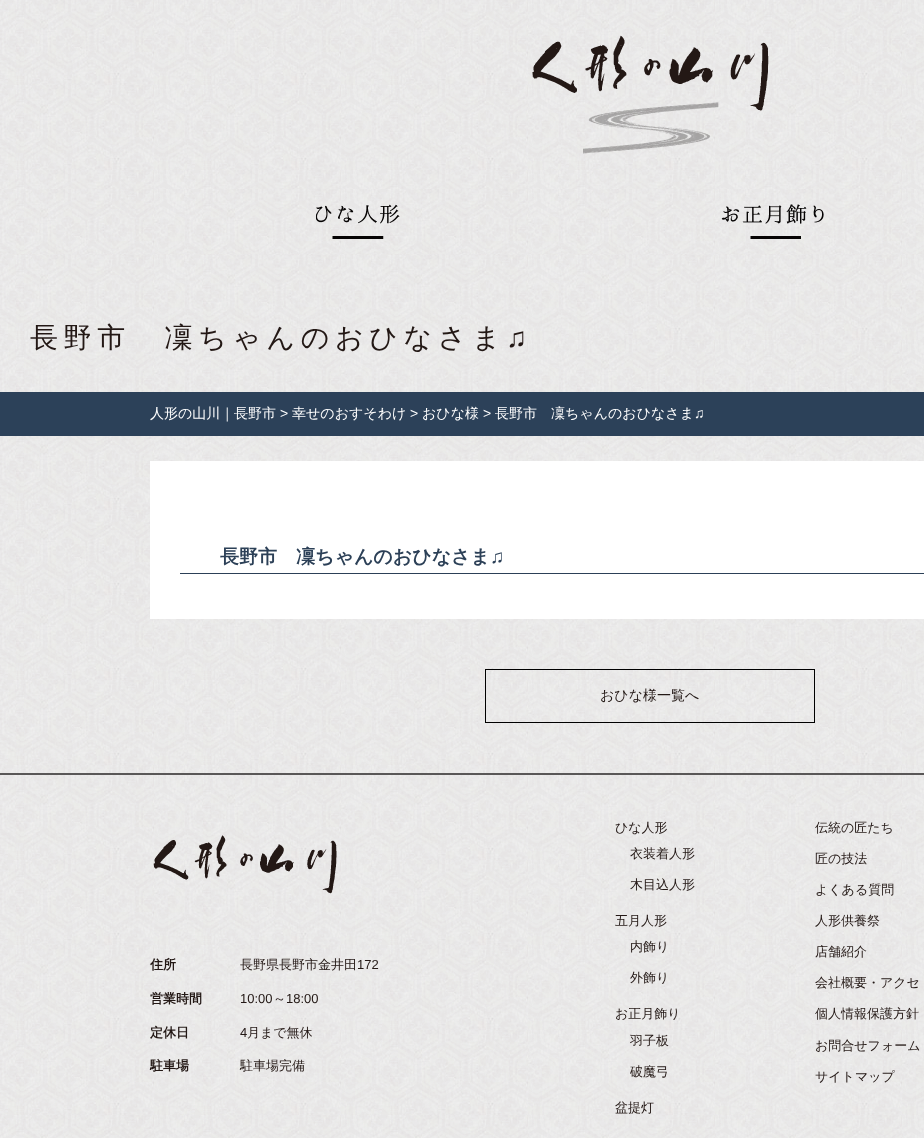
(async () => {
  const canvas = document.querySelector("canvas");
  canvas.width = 924;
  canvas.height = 1138;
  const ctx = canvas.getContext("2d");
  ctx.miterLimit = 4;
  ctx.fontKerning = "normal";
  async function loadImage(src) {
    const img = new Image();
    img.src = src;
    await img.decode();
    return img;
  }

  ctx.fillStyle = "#ffffff";
  ctx.fillRect(0, 0, 924, 1138);
  ctx.drawImage(await loadImage("img/1.png"), 0, 0, 924, 773);
  ctx.drawImage(await loadImage("img/2.png"), 532, 35, 237, 119);
  ctx.drawImage(await loadImage("img/3.png"), 0, 189, 924, 65);
  ctx.drawImage(await loadImage("img/4.png"), 316, 204, 84, 35);
  ctx.drawImage(await loadImage("img/5.png"), 721, 204, 103, 35);
  for (const [x, y, w, h, color] of [
    [0, 392, 924, 44, "#2c4159"],
    [150, 461, 774, 158, "#ffffff"],
    [180, 573, 744, 1, "#2c4057"],
  ]) {
    ctx.fillStyle = color;
    ctx.fillRect(x, y, w, h);
  }
  ctx.strokeStyle = "#000000";
  ctx.strokeRect(485.5, 669.5, 329, 53);
  ctx.drawImage(await loadImage("img/6.png"), 0, 775, 924, 363);
  ctx.fillStyle = "#595757";
  ctx.fillRect(0, 773, 924, 2);
  ctx.drawImage(await loadImage("img/7.png"), 153, 835, 184, 59);
  ctx.letterSpacing = "5.6px";
  ctx.font = "500 28px WenQuanYi Zen Hei";
  ctx.fillStyle = "#231815";
  ctx.fillText("長野市　凜ちゃんのおひなさま", 30, 347);
  ctx.font = "28px Liberation Serif";
  ctx.fillText("♫", 506, 347);
  ctx.letterSpacing = "0px";
  ctx.font = "500 14px WenQuanYi Zen Hei";
  ctx.fillStyle = "#ffffff";
  ctx.fillText("人形の山川｜長野市", 150, 418);
  ctx.font = "14px Liberation Sans";
  ctx.fillText(">", 280, 418);
  ctx.font = "500 14px WenQuanYi Zen Hei";
  ctx.fillText("幸せのおすそわけ", 292, 418);
  ctx.font = "14px Liberation Sans";
  ctx.fillText(">", 410, 418);
  ctx.font = "500 14px WenQuanYi Zen Hei";
  ctx.fillText("おひな様", 422, 418);
  ctx.font = "14px Liberation Sans";
  ctx.fillText(">", 483, 418);
  ctx.font = "500 14px WenQuanYi Zen Hei";
  ctx.fillText("長野市　凜ちゃんのおひなさま", 495, 418);
  ctx.font = "14px Liberation Sans";
  ctx.fillText("♫", 694, 418);
  ctx.font = "bold 19px WenQuanYi Zen Hei";
  ctx.fillStyle = "#2c4057";
  ctx.fillText("長野市　凜ちゃんのおひなさま", 220, 563);
  ctx.font = "bold 19px Liberation Sans";
  ctx.fillText("♫", 490, 563);
  ctx.font = "500 14px WenQuanYi Zen Hei";
  ctx.fillStyle = "#231815";
  ctx.fillText("おひな様一覧へ", 600, 700);
  ctx.font = "bold 13px WenQuanYi Zen Hei";
  ctx.fillText("住所", 150, 969);
  ctx.font = "500 13px WenQuanYi Zen Hei";
  ctx.fillText("長野県長野市金井田", 240, 969);
  ctx.font = "13px Liberation Sans";
  ctx.fillText("172", 357, 969);
  ctx.font = "bold 13px WenQuanYi Zen Hei";
  ctx.fillText("営業時間", 150, 1003);
  ctx.font = "13px Liberation Sans";
  ctx.fillText("10:00", 240, 1003);
  ctx.font = "500 13px WenQuanYi Zen Hei";
  ctx.fillText("～", 273, 1003);
  ctx.font = "13px Liberation Sans";
  ctx.fillText("18:00", 286, 1003);
  ctx.font = "bold 13px WenQuanYi Zen Hei";
  ctx.fillText("定休日", 150, 1037);
  ctx.font = "13px Liberation Sans";
  ctx.fillText("4", 240, 1037);
  ctx.font = "500 13px WenQuanYi Zen Hei";
  ctx.fillText("月まで無休", 247, 1037);
  ctx.font = "bold 13px WenQuanYi Zen Hei";
  ctx.fillText("駐車場", 150, 1070);
  ctx.font = "500 13px WenQuanYi Zen Hei";
  for (const [text, x, y] of [
    ["駐車場完備", 240, 1070],
    ["ひな人形", 615, 832],
    ["衣装着人形", 630, 858],
    ["木目込人形", 630, 889],
    ["五月人形", 615, 925],
    ["内飾り", 630, 951],
    ["外飾り", 630, 982],
    ["お正月飾り", 615, 1018],
    ["羽子板", 630, 1045],
    ["破魔弓", 630, 1076],
    ["盆提灯", 615, 1112],
    ["伝統の匠たち", 815, 832],
    ["匠の技法", 815, 863],
    ["よくある質問", 815, 894],
    ["人形供養祭", 815, 925],
    ["店舗紹介", 815, 956],
    ["会社概要・アクセ", 815, 987],
    ["個人情報保護方針", 815, 1018],
    ["お問合せフォーム", 815, 1050],
    ["サイトマップ", 815, 1081],
  ]) {
    ctx.fillText(text, x, y);
  }
})();
